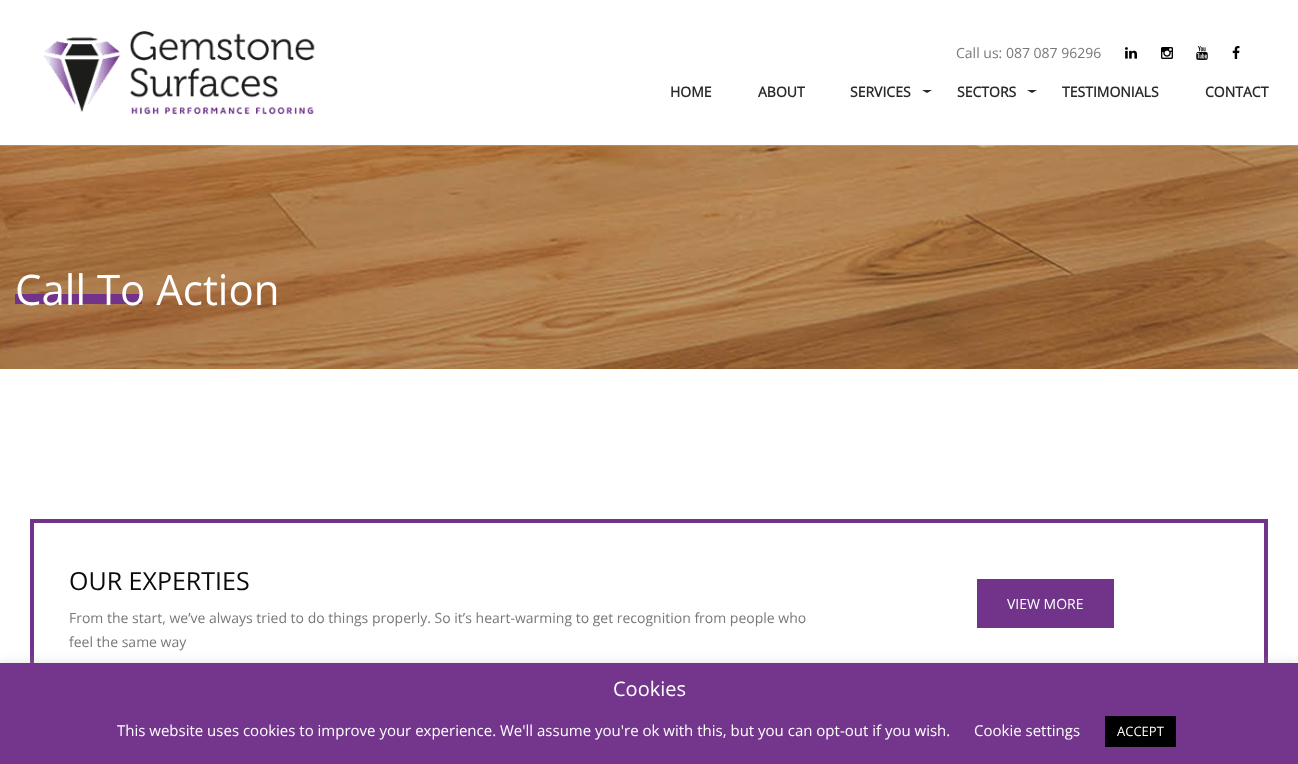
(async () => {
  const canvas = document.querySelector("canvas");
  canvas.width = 1298;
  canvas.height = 764;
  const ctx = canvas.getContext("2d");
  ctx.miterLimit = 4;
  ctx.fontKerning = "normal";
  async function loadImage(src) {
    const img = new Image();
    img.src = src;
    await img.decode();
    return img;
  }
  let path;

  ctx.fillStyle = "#ffffff";
  ctx.fillRect(0, 0, 1298, 764);
  ctx.drawImage(await loadImage("img/6.png"), 0, 145, 1298, 224);
  ctx.fillStyle = "rgba(238, 238, 238, 0.2)";
  ctx.fillRect(0, 145, 1298, 1);
  ctx.drawImage(await loadImage("img/1.png"), 43, 31, 272, 84);
  ctx.drawImage(await loadImage("img/2.png"), 1125, 47, 12, 12);
  ctx.drawImage(await loadImage("img/3.png"), 1161, 47, 12, 12);
  ctx.drawImage(await loadImage("img/4.png"), 1196, 46, 12, 14);
  ctx.drawImage(await loadImage("img/5.png"), 1232, 46, 8, 13);
  ctx.fillStyle = "#2a2a2a";
  path = new Path2D("M922 90H932L927 93Z");
  ctx.fill(path);
  path = new Path2D("M1027 90H1037L1032 93Z");
  ctx.fill(path);
  ctx.fillStyle = "#72348b";
  ctx.fillRect(15, 294, 127, 10);
  ctx.strokeStyle = "#72348b";
  ctx.lineWidth = 4;
  ctx.strokeRect(32, 521, 1234, 200);
  ctx.fillRect(977, 579, 137, 49);
  ctx.fillStyle = "rgba(172, 171, 171, 0.3)";
  ctx.filter = "blur(5px)";
  ctx.beginPath();
  ctx.rect(0, 662, 1298, 101);
  ctx.fill();
  ctx.filter = "none";
  ctx.fillStyle = "#73368c";
  ctx.fillRect(0, 663, 1298, 101);
  ctx.fillStyle = "#000000";
  ctx.fillRect(1105, 716, 71, 31);
  ctx.font = "14px Open Sans";
  ctx.fillStyle = "#787878";
  ctx.fillText("Call us: 087 087 96296", 956, 58);
  ctx.font = "bold 14px Open Sans";
  ctx.fillStyle = "#2a2a2a";
  for (const [text, x, y] of [
    ["HOME", 670, 97],
    ["ABOUT", 758, 97],
    ["SERVICES", 850, 97],
    ["SECTORS", 957, 97],
    ["TESTIMONIALS", 1062, 97],
    ["CONTACT", 1205, 97],
  ]) {
    ctx.fillText(text, x, y);
  }
  ctx.font = "42px Open Sans";
  ctx.fillStyle = "#ffffff";
  ctx.fillText("Call To Action", 15, 305);
  ctx.font = "25px Open Sans";
  ctx.fillStyle = "#0a0a0a";
  ctx.fillText("OUR EXPERTIES", 69, 590);
  ctx.font = "14px Open Sans";
  ctx.fillStyle = "#787878";
  ctx.fillText("From the start, we’ve always tried to do things properly. So it’s heart-warming to get recognition from people who", 69, 623);
  ctx.fillText("feel the same way", 69, 647);
  ctx.fillStyle = "#ffffff";
  ctx.fillText("VIEW MORE", 1007, 609);
  ctx.font = "20px Open Sans";
  ctx.fillText("Cookies", 613, 696);
  ctx.font = "15px Open Sans";
  ctx.fillText("This website uses cookies to improve your experience. We'll assume you're ok with this, but you can opt-out if you wish.", 117, 736);
  ctx.fillText("Cookie settings", 974, 736);
  ctx.font = "13px Open Sans";
  ctx.fillText("ACCEPT", 1117, 736);
})();
